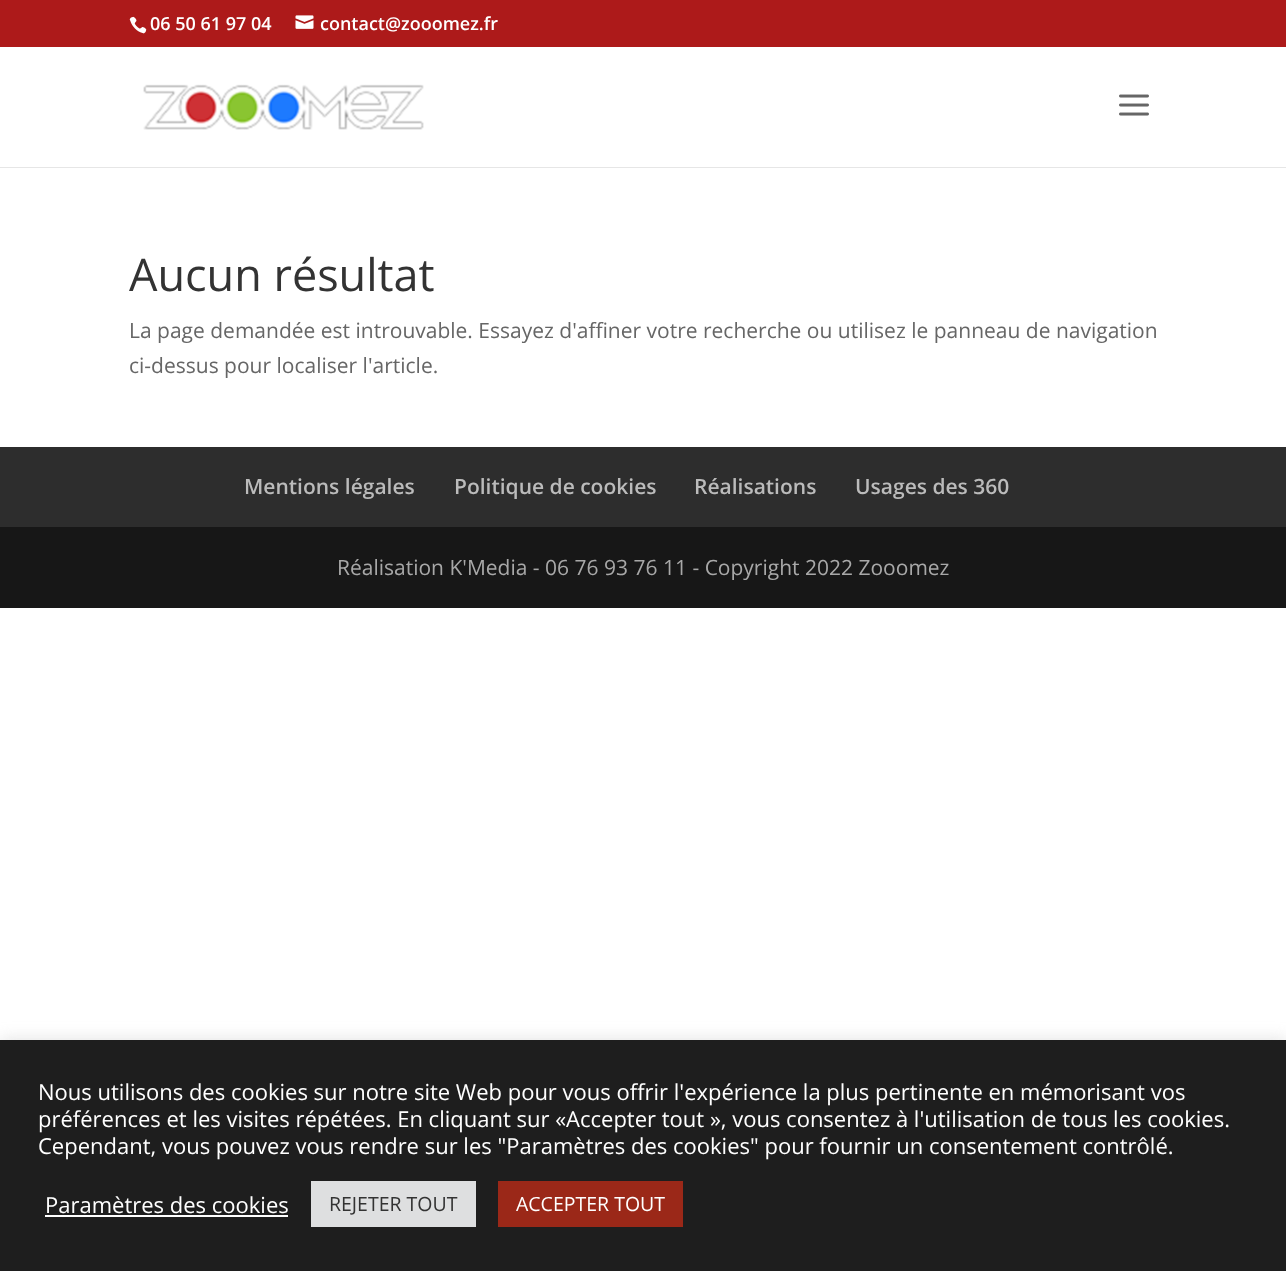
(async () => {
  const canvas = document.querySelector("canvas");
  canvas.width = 1286;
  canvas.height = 1271;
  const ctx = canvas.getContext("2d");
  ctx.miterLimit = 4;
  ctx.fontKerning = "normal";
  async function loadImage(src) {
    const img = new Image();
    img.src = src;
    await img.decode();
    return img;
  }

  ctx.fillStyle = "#ffffff";
  ctx.fillRect(0, 0, 1286, 1271);
  ctx.fillStyle = "#ad1a1a";
  ctx.fillRect(0, 0, 1286, 47);
  ctx.drawImage(await loadImage("img/1.png"), 129, 16, 18, 18);
  ctx.drawImage(await loadImage("img/2.png"), 295, 15, 19, 14);
  ctx.fillStyle = "#e6e6e6";
  ctx.fillRect(0, 167, 1286, 1);
  ctx.drawImage(await loadImage("img/3.png"), 143, 84, 281, 46);
  ctx.drawImage(await loadImage("img/4.png"), 1119, 94, 30, 22);
  ctx.fillStyle = "#2d2d2d";
  ctx.fillRect(0, 447, 1286, 80);
  ctx.fillStyle = "#171717";
  ctx.fillRect(0, 527, 1286, 81);
  ctx.fillStyle = "rgba(172, 171, 171, 0.3)";
  ctx.filter = "blur(7.5px)";
  ctx.beginPath();
  ctx.rect(0, 1038, 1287, 233);
  ctx.fill();
  ctx.filter = "none";
  for (const [x, y, w, h, color] of [
    [0, 1040, 1286, 231, "#1e1e1e"],
    [45, 1215, 243, 2, "#ffffff"],
    [311, 1181, 165, 46, "#dedfe0"],
    [498, 1181, 185, 46, "#9b2818"],
  ]) {
    ctx.fillStyle = color;
    ctx.fillRect(x, y, w, h);
  }
  ctx.font = "600 18px Open Sans";
  ctx.fillStyle = "#ffffff";
  ctx.fillText("06 50 61 97 04", 150, 30);
  ctx.fillText("contact@zooomez.fr", 320, 30);
  ctx.font = "45px Open Sans";
  ctx.fillStyle = "#333333";
  ctx.fillText("Aucun résultat", 129, 291);
  ctx.font = "21px Open Sans";
  ctx.fillStyle = "#666666";
  ctx.fillText("La page demandée est introuvable. Essayez d'affiner votre recherche ou utilisez le panneau de navigation", 129, 338);
  ctx.fillText("ci-dessus pour localiser l'article.", 129, 373);
  ctx.font = "600 21px Open Sans";
  ctx.fillStyle = "#bbbbbb";
  for (const [text, x, y] of [
    ["Mentions légales", 244, 494],
    ["Politique de cookies", 454, 494],
    ["Réalisations", 694, 494],
    ["Usages des 360", 855, 494],
  ]) {
    ctx.fillText(text, x, y);
  }
  ctx.font = "21px Open Sans";
  ctx.fillStyle = "#a8a8a8";
  ctx.fillText("Réalisation K'Media - 06 76 93 76 11 - Copyright 2022 Zooomez", 337, 575);
  ctx.font = "22px Open Sans";
  ctx.fillStyle = "#ffffff";
  for (const [text, x, y] of [
    ["Nous utilisons des cookies sur notre site Web pour vous offrir l'expérience la plus pertinente en mémorisant vos", 38, 1100],
    ["préférences et les visites répétées. En cliquant sur «Accepter tout », vous consentez à l'utilisation de tous les cookies.", 38, 1127],
    ["Cependant, vous pouvez vous rendre sur les \"Paramètres des cookies\" pour fournir un consentement contrôlé.", 38, 1154],
    ["Paramètres des cookies", 45, 1213],
  ]) {
    ctx.fillText(text, x, y);
  }
  ctx.font = "19.5px Open Sans";
  ctx.fillStyle = "#333333";
  ctx.fillText("REJETER TOUT", 329, 1211);
  ctx.fillStyle = "#ffffff";
  ctx.fillText("ACCEPTER TOUT", 516, 1211);
})();
